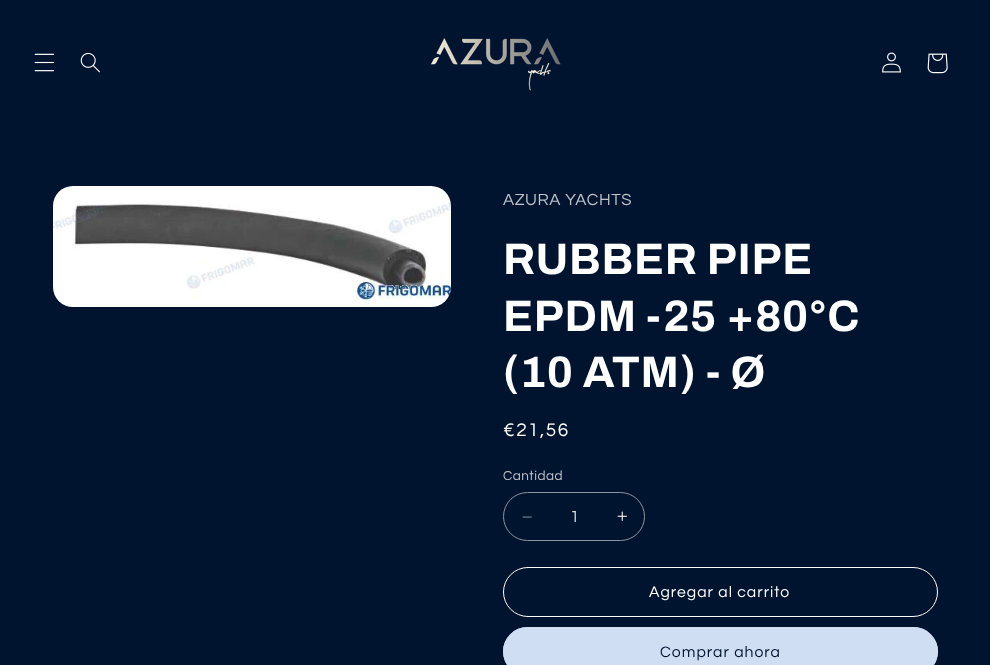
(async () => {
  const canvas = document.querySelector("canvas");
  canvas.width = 990;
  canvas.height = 665;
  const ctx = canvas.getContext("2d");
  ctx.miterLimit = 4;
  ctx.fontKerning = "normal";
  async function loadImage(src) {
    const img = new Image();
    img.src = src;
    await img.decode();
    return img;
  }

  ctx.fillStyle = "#001430";
  ctx.fillRect(0, 0, 990, 665);
  ctx.drawImage(await loadImage("img/1.png"), 34, 53, 20, 19);
  ctx.drawImage(await loadImage("img/2.png"), 80, 52, 20, 21);
  ctx.drawImage(await loadImage("img/3.png"), 431, 38, 130, 53);
  ctx.drawImage(await loadImage("img/4.png"), 882, 52, 19, 21);
  ctx.drawImage(await loadImage("img/5.png"), 927, 53, 21, 21);
  ctx.drawImage(await loadImage("img/6.png"), 53, 186, 398, 121);
  ctx.drawImage(await loadImage("img/7.png"), 522, 516, 10, 2);
  ctx.drawImage(await loadImage("img/8.png"), 617, 511, 10, 10);
  ctx.beginPath();
  ctx.roundRect(503.5, 492.5, 141, 48, 24);
  ctx.strokeStyle = "#8c95a2";
  ctx.stroke();
  ctx.beginPath();
  ctx.roundRect(503.5, 567.5, 434, 49, 24.5);
  ctx.strokeStyle = "#ffffff";
  ctx.stroke();
  ctx.fillStyle = "#cfdef3";
  ctx.beginPath();
  ctx.roundRect(503, 627, 435, 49, 24.5);
  ctx.fill();
  ctx.beginPath();
  ctx.roundRect(503.5, 627.5, 434, 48, 24);
  ctx.strokeStyle = "#cfdef3";
  ctx.stroke();
  ctx.letterSpacing = "0.6px";
  ctx.font = "16.75px Questrial";
  ctx.fillStyle = "#bfc4cb";
  ctx.fillText("AZURA YACHTS", 503, 205);
  ctx.letterSpacing = "0.7px";
  ctx.font = "bold 44px Archivo";
  ctx.fillStyle = "#ffffff";
  for (const [text, x, y] of [
    ["RUBBER PIPE", 503, 274],
    ["EPDM -25 +80°C", 503, 331],
    ["(10 ATM) - Ø", 503, 387],
  ]) {
    ctx.fillText(text, x, y);
  }
  ctx.letterSpacing = "1.5px";
  ctx.font = "19px Questrial";
  ctx.fillText("€21,56", 503, 436);
  ctx.letterSpacing = "0.5px";
  ctx.font = "13.5px Questrial";
  ctx.fillStyle = "#bfc4cb";
  ctx.fillText("Cantidad", 503, 480);
  ctx.letterSpacing = "0px";
  ctx.font = "16.75px Questrial";
  ctx.fillStyle = "#d9dce0";
  ctx.fillText("1", 570, 522);
  ctx.letterSpacing = "1px";
  ctx.font = "15.75px Questrial";
  ctx.fillStyle = "#ffffff";
  ctx.fillText("Agregar al carrito", 649, 597);
  ctx.fillStyle = "#001430";
  ctx.fillText("Comprar ahora", 660, 657);
})();
